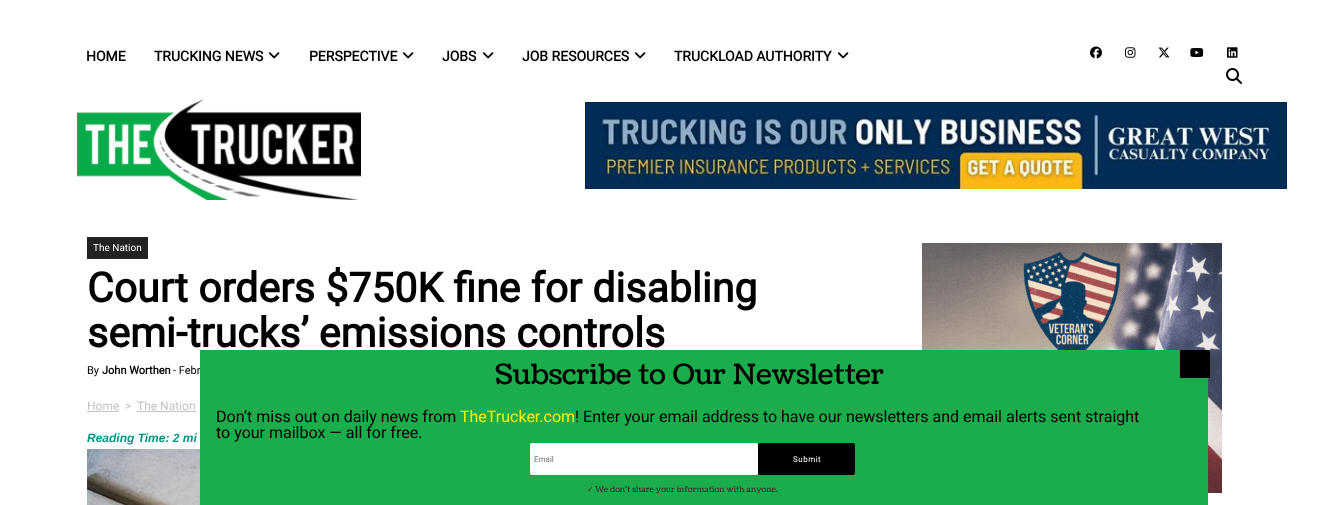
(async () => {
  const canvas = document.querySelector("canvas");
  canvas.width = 1344;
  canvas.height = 505;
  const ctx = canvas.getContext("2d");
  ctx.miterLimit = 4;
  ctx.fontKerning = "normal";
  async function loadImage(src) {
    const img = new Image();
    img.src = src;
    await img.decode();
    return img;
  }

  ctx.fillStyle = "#ffffff";
  ctx.fillRect(0, 0, 1344, 505);
  ctx.drawImage(await loadImage("img/1.png"), 268, 52, 12, 7);
  ctx.drawImage(await loadImage("img/1.png"), 402, 52, 12, 7);
  ctx.drawImage(await loadImage("img/1.png"), 482, 52, 12, 7);
  ctx.drawImage(await loadImage("img/1.png"), 634, 52, 12, 7);
  ctx.drawImage(await loadImage("img/1.png"), 837, 52, 12, 7);
  ctx.drawImage(await loadImage("img/2.png"), 1090, 46, 12, 13);
  ctx.drawImage(await loadImage("img/3.png"), 1125, 47, 11, 11);
  ctx.drawImage(await loadImage("img/4.png"), 1158, 47, 12, 11);
  ctx.drawImage(await loadImage("img/5.png"), 1190, 48, 14, 9);
  ctx.drawImage(await loadImage("img/6.png"), 1227, 47, 11, 11);
  ctx.drawImage(await loadImage("img/7.png"), 1226, 68, 16, 16);
  ctx.drawImage(await loadImage("img/8.png"), 77, 99, 284, 101);
  ctx.drawImage(await loadImage("img/9.png"), 585, 102, 702, 87);
  for (const [x, y, w, h, color] of [
    [87, 237, 61, 22, "#222222"],
    [87, 411, 32, 1, "#c3c3c3"],
    [137, 411, 59, 1, "#c3c3c3"],
  ]) {
    ctx.fillStyle = color;
    ctx.fillRect(x, y, w, h);
  }
  ctx.drawImage(await loadImage("img/10.png"), 87, 449, 113, 56);
  ctx.drawImage(await loadImage("img/11.png"), 922, 243, 300, 250);
  ctx.font = "bold 14px Roboto";
  ctx.fillStyle = "#000000";
  for (const [text, x, y] of [
    ["HOME", 86, 61],
    ["TRUCKING NEWS", 154, 61],
    ["PERSPECTIVE", 309, 61],
    ["JOBS", 442, 61],
    ["JOB RESOURCES", 522, 61],
    ["TRUCKLOAD AUTHORITY", 674, 61],
  ]) {
    ctx.fillText(text, x, y);
  }
  ctx.font = "10px Roboto";
  ctx.fillStyle = "#ffffff";
  ctx.fillText("The Nation", 93, 251);
  ctx.font = "bold 41px Roboto";
  ctx.fillStyle = "#000000";
  ctx.fillText("Court orders $750K fine for disabling", 87, 302);
  ctx.fillText("semi-trucks’ emissions controls", 87, 347);
  ctx.font = "11px Roboto";
  ctx.fillText("By", 87, 374);
  ctx.font = "bold 11px Roboto";
  ctx.fillText("John Worthen", 102, 374);
  ctx.font = "11px Roboto";
  ctx.fillText("- Febr", 173, 374);
  ctx.font = "12px Roboto";
  ctx.fillStyle = "#c3c3c3";
  for (const [text, x, y] of [
    ["Home", 87, 410],
    [">", 125, 410],
    ["The Nation", 137, 410],
  ]) {
    ctx.fillText(text, x, y);
  }
  ctx.font = "italic bold 12px Liberation Sans";
  ctx.fillStyle = "#009688";
  ctx.fillText("Reading Time: 2 mi", 87, 442);
  ctx.fillStyle = "#1bac4b";
  ctx.fillRect(200, 350, 1008, 155);
  ctx.font = "28px Coustard";
  ctx.fillStyle = "#000000";
  ctx.fillText("Subscribe to Our Newsletter", 495, 384);
  ctx.fillRect(1180, 350, 30, 28);
  ctx.font = "16px Roboto";
  ctx.fillText("Don’t miss out on daily news from", 216, 422);
  ctx.fillStyle = "#fff000";
  ctx.fillText("TheTrucker.com", 460, 422);
  ctx.fillStyle = "#000000";
  ctx.fillText("! Enter your email address to have our newsletters and email alerts sent straight", 575, 422);
  ctx.fillText("to your mailbox — all for free.", 216, 438);
  ctx.fillStyle = "#ffffff";
  ctx.beginPath();
  ctx.roundRect(530, 443, 228, 32, 2);
  ctx.fill();
  ctx.font = "8px Roboto";
  ctx.fillStyle = "#757575";
  ctx.fillText("Email", 534, 462);
  ctx.fillStyle = "#000000";
  ctx.beginPath();
  ctx.roundRect(758, 443, 97, 32, 2);
  ctx.fill();
  ctx.letterSpacing = "0.5px";
  ctx.fillStyle = "#ffffff";
  ctx.fillText("Submit", 793, 462);
  ctx.letterSpacing = "0px";
  ctx.font = "8px DejaVu Sans";
  ctx.fillStyle = "#333333";
  ctx.fillText("✓", 587, 492);
  ctx.font = "8px Coustard";
  ctx.fillText("We don't share your information with anyone.", 595, 492);
})();
